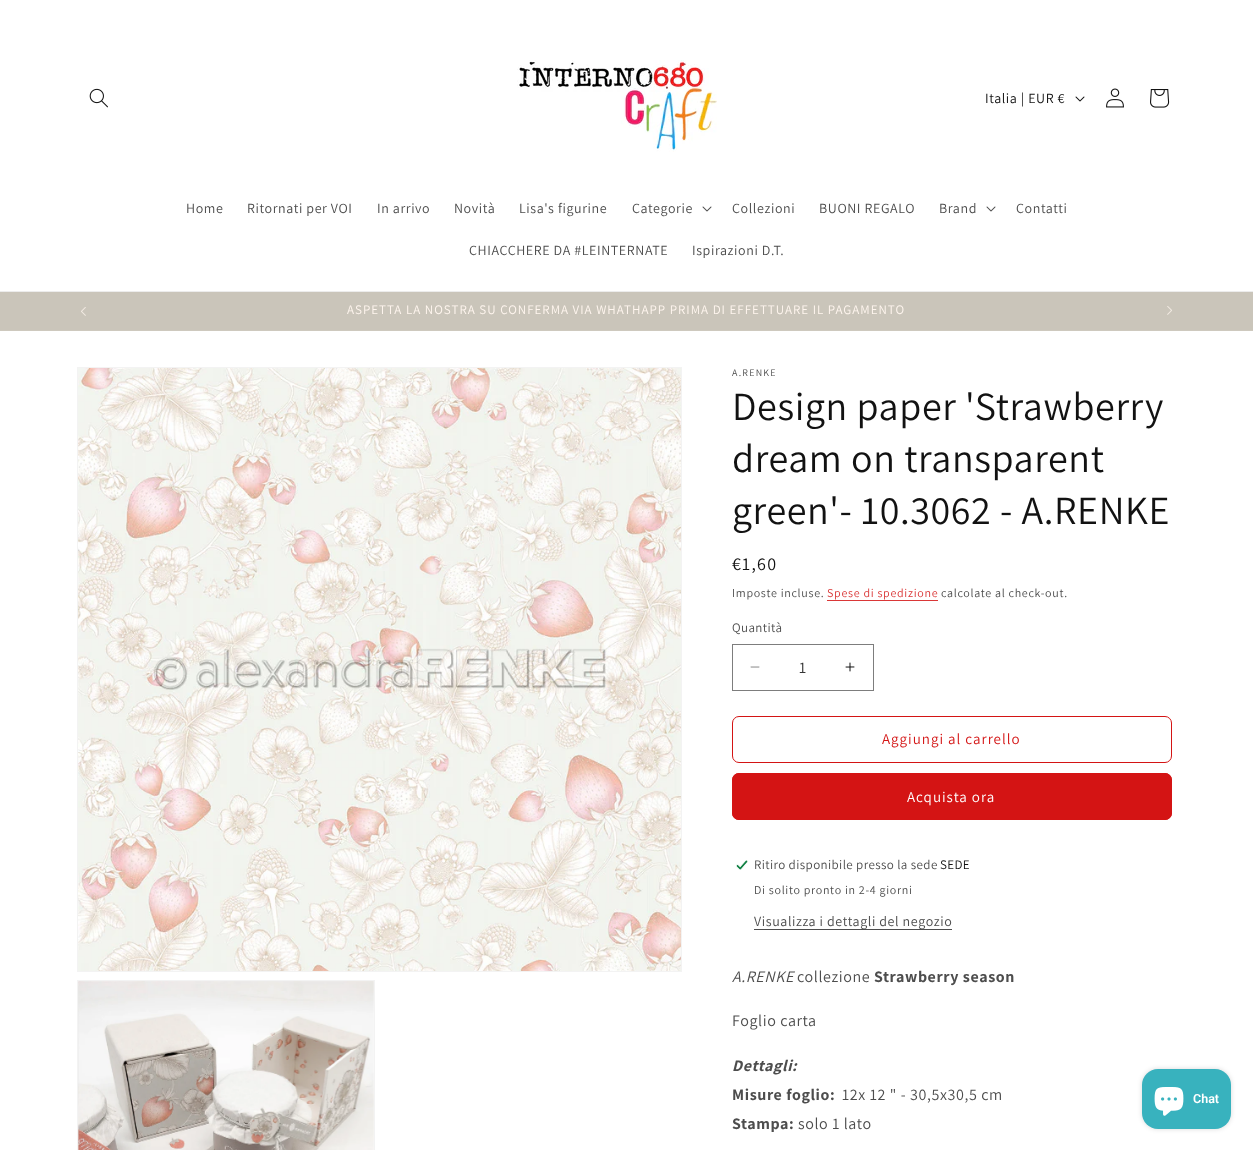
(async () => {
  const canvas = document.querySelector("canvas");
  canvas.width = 1253;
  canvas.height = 1150;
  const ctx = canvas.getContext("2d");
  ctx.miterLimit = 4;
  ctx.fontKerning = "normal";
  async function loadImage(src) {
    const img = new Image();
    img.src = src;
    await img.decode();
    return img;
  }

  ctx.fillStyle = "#ffffff";
  ctx.fillRect(0, 0, 1253, 1150);
  ctx.fillStyle = "#ececec";
  ctx.fillRect(0, 291, 1253, 1);
  ctx.drawImage(await loadImage("img/1.png"), 89, 88, 19, 20);
  ctx.drawImage(await loadImage("img/2.png"), 517, 60, 200, 92);
  ctx.drawImage(await loadImage("img/3.png"), 1075, 96, 10, 6);
  ctx.drawImage(await loadImage("img/4.png"), 1106, 88, 18, 20);
  ctx.drawImage(await loadImage("img/5.png"), 1150, 89, 20, 19);
  ctx.drawImage(await loadImage("img/6.png"), 702, 206, 10, 6);
  ctx.drawImage(await loadImage("img/6.png"), 986, 206, 10, 6);
  ctx.fillStyle = "#cac5ba";
  ctx.fillRect(0, 292, 1253, 38);
  ctx.fillStyle = "#cec9be";
  ctx.fillRect(0, 330, 1253, 1);
  ctx.drawImage(await loadImage("img/7.png"), 81, 307, 5, 9);
  ctx.drawImage(await loadImage("img/8.png"), 1167, 306, 5, 9);
  ctx.strokeStyle = "#f3f3f3";
  ctx.strokeRect(77.5, 367.5, 604, 604);
  ctx.drawImage(await loadImage("img/9.png"), 78, 368, 603, 603);
  ctx.strokeRect(77.5, 980.5, 297, 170);
  ctx.drawImage(await loadImage("img/10.png"), 78, 981, 296, 169);
  ctx.fillStyle = "#da3737";
  ctx.fillRect(827, 600, 111, 1);
  ctx.drawImage(await loadImage("img/11.png"), 750, 666, 10, 2);
  ctx.drawImage(await loadImage("img/12.png"), 845, 662, 10, 10);
  ctx.strokeStyle = "#7d7d7d";
  ctx.strokeRect(732.5, 644.5, 141, 46);
  ctx.beginPath();
  ctx.roundRect(732.5, 716.5, 439, 46, 6.5);
  ctx.strokeStyle = "#d41414";
  ctx.stroke();
  ctx.fillStyle = "#d41414";
  ctx.beginPath();
  ctx.roundRect(732, 773, 440, 47, 7);
  ctx.fill();
  ctx.beginPath();
  ctx.roundRect(732.5, 773.5, 439, 46, 6.5);
  ctx.stroke();
  ctx.drawImage(await loadImage("img/13.png"), 736, 860, 12, 10);
  ctx.fillStyle = "#4d4d4d";
  ctx.fillRect(754, 929, 198, 1);
  ctx.fillStyle = "rgba(0, 0, 0, 0.15)";
  ctx.filter = "blur(2.5px)";
  ctx.beginPath();
  ctx.roundRect(1142, 1069, 89, 60, 16);
  ctx.fill();
  ctx.filter = "none";
  ctx.fillStyle = "#38b2be";
  ctx.beginPath();
  ctx.roundRect(1142, 1069, 89, 60, 16);
  ctx.fill();
  ctx.drawImage(await loadImage("img/14.png"), 1154, 1087, 30, 29);
  ctx.letterSpacing = "0.6px";
  ctx.font = "14px Assistant";
  ctx.fillStyle = "#121212";
  ctx.fillText("Italia | EUR €", 985, 103);
  ctx.fillStyle = "#4d4d4d";
  for (const [text, x, y] of [
    ["Home", 186, 213],
    ["Ritornati per VOI", 247, 213],
    ["In arrivo", 377, 213],
    ["Novità", 454, 213],
    ["Lisa's figurine", 519, 213],
    ["Categorie", 632, 213],
    ["Collezioni", 732, 213],
    ["BUONI REGALO", 819, 213],
    ["Brand", 939, 213],
    ["Contatti", 1016, 213],
    ["CHIACCHERE DA #LEINTERNATE", 469, 255],
    ["Ispirazioni D.T.", 692, 255],
  ]) {
    ctx.fillText(text, x, y);
  }
  ctx.letterSpacing = "1px";
  ctx.font = "13px Assistant";
  ctx.fillStyle = "#fff6ef";
  ctx.fillText("ASPETTA LA NOSTRA SU CONFERMA VIA WHATHAPP PRIMA DI EFFETTUARE IL PAGAMENTO", 347, 314);
  ctx.letterSpacing = "1.25px";
  ctx.font = "10px Assistant";
  ctx.fillStyle = "#4d4d4d";
  ctx.fillText("A.RENKE", 732, 376);
  ctx.letterSpacing = "0.6px";
  ctx.font = "40px Assistant";
  ctx.fillStyle = "#121212";
  for (const [text, x, y] of [
    ["Design paper 'Strawberry", 732, 420],
    ["dream on transparent", 732, 472],
    ["green'- 10.3062 - A.RENKE", 732, 524],
  ]) {
    ctx.fillText(text, x, y);
  }
  ctx.letterSpacing = "1.25px";
  ctx.font = "18px Assistant";
  ctx.fillText("€1,60", 732, 570);
  ctx.letterSpacing = "0.7px";
  ctx.font = "12px Assistant";
  ctx.fillStyle = "#4d4d4d";
  ctx.fillText("Imposte incluse.", 732, 597);
  ctx.fillStyle = "#da3737";
  ctx.fillText("Spese di spedizione", 827, 597);
  ctx.fillStyle = "#4d4d4d";
  ctx.fillText("calcolate al check-out.", 941, 597);
  ctx.letterSpacing = "0.4px";
  ctx.font = "13px Assistant";
  ctx.fillText("Quantità", 732, 632);
  ctx.letterSpacing = "0px";
  ctx.font = "16px Assistant";
  ctx.fillStyle = "#363636";
  ctx.fillText("1", 799, 673);
  ctx.letterSpacing = "1px";
  ctx.font = "15px Assistant";
  ctx.fillStyle = "#d41414";
  ctx.fillText("Aggiungi al carrello", 882, 744);
  ctx.fillStyle = "#ffffff";
  ctx.fillText("Acquista ora", 907, 802);
  ctx.letterSpacing = "0.4px";
  ctx.font = "13px Assistant";
  ctx.fillStyle = "#4d4d4d";
  ctx.fillText("Ritiro disponibile presso la sede", 754, 869);
  ctx.fillStyle = "#121212";
  ctx.fillText("SEDE", 940, 869);
  ctx.letterSpacing = "0.7px";
  ctx.font = "12px Assistant";
  ctx.fillStyle = "#4d4d4d";
  ctx.fillText("Di solito pronto in 2-4 giorni", 754, 894);
  ctx.letterSpacing = "0.6px";
  ctx.font = "14px Assistant";
  ctx.fillText("Visualizza i dettagli del negozio", 754, 926);
  ctx.font = "italic 16px Assistant";
  ctx.fillText("A.RENKE", 732, 982);
  ctx.font = "16px Assistant";
  ctx.fillText("collezione", 797, 982);
  ctx.font = "bold 16px Assistant";
  ctx.fillText("Strawberry season", 874, 982);
  ctx.font = "16px Assistant";
  ctx.fillText("Foglio carta", 732, 1026);
  ctx.font = "italic bold 16px Assistant";
  ctx.fillText("Dettagli:", 732, 1071);
  ctx.font = "bold 16px Assistant";
  ctx.fillText("Misure foglio:", 732, 1100);
  ctx.font = "16px Assistant";
  ctx.fillText("12x 12 \" - 30,5x30,5 cm", 842, 1100);
  ctx.font = "bold 16px Assistant";
  ctx.fillText("Stampa:", 732, 1129);
  ctx.font = "16px Assistant";
  ctx.fillText("solo 1 lato", 798, 1129);
  ctx.letterSpacing = "0px";
  ctx.font = "600 12.5px Roboto";
  ctx.fillStyle = "#ffffff";
  ctx.fillText("Chat", 1193, 1103);
})();
